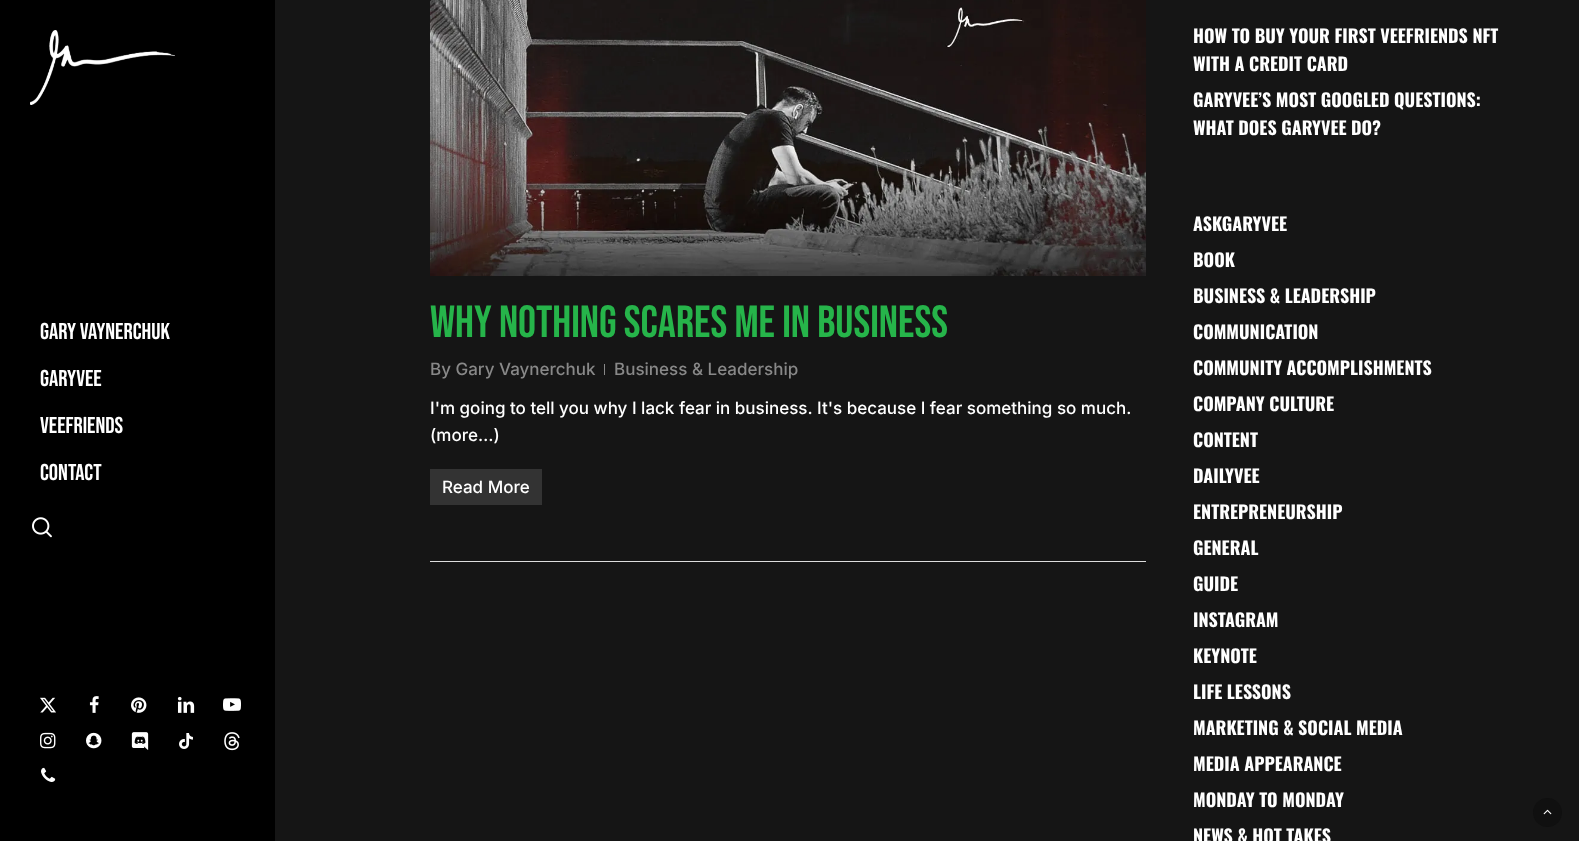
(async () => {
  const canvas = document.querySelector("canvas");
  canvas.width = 1579;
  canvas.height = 841;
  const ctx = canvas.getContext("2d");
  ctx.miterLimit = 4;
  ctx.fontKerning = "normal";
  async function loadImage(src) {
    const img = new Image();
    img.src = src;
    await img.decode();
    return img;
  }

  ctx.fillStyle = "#151515";
  ctx.fillRect(0, 0, 1579, 841);
  ctx.fillStyle = "#000000";
  ctx.fillRect(0, 0, 275, 841);
  ctx.drawImage(await loadImage("img/1.png"), 30, 30, 145, 75);
  ctx.drawImage(await loadImage("img/2.png"), 32, 517, 20, 21);
  ctx.drawImage(await loadImage("img/3.png"), 40, 697, 16, 16);
  ctx.drawImage(await loadImage("img/4.png"), 89, 696, 10, 17);
  ctx.drawImage(await loadImage("img/5.png"), 131, 697, 16, 16);
  ctx.drawImage(await loadImage("img/6.png"), 177, 696, 18, 17);
  ctx.drawImage(await loadImage("img/7.png"), 223, 698, 18, 13);
  ctx.drawImage(await loadImage("img/8.png"), 40, 732, 16, 17);
  ctx.drawImage(await loadImage("img/9.png"), 86, 732, 16, 17);
  ctx.drawImage(await loadImage("img/10.png"), 131, 732, 18, 18);
  ctx.drawImage(await loadImage("img/11.png"), 179, 733, 14, 16);
  ctx.drawImage(await loadImage("img/12.png"), 224, 732, 16, 19);
  ctx.drawImage(await loadImage("img/13.png"), 41, 767, 15, 15);
  ctx.fillStyle = "#dddddd";
  ctx.fillRect(430, 561, 716, 1);
  ctx.drawImage(await loadImage("img/14.png"), 430, 0, 716, 276);
  ctx.fillStyle = "#888888";
  ctx.fillRect(604, 364, 1, 11);
  ctx.fillStyle = "#333333";
  ctx.fillRect(430, 469, 112, 36);
  ctx.fillStyle = "#101010";
  ctx.beginPath();
  ctx.arc(1547.5, 812.5, 14.5, 0, Math.PI * 2);
  ctx.fill();
  ctx.drawImage(await loadImage("img/15.png"), 1543, 809, 9, 6);
  ctx.font = "23px Bebas Neue";
  ctx.fillStyle = "#ffffff";
  for (const [text, x, y] of [
    ["GARY VAYNERCHUK", 40, 339],
    ["GARYVEE", 40, 386],
    ["VEEFRIENDS", 40, 433],
    ["CONTACT", 40, 480],
  ]) {
    ctx.fillText(text, x, y);
  }
  ctx.font = "45px Bebas Neue";
  ctx.fillStyle = "#26b44a";
  ctx.fillText("WHY NOTHING SCARES ME IN BUSINESS", 430, 337);
  ctx.font = "500 17px Inter";
  ctx.fillStyle = "#888888";
  ctx.fillText("By Gary Vaynerchuk", 430, 375);
  ctx.fillText("Business & Leadership", 614, 375);
  ctx.fillStyle = "#ffffff";
  for (const [text, x, y] of [
    ["I'm going to tell you why I lack fear in business. It's because I fear something so much.", 430, 414],
    ["(more…)", 430, 441],
    ["Read More", 442, 493],
  ]) {
    ctx.fillText(text, x, y);
  }
  ctx.font = "bold 18px Oswald";
  for (const [text, x, y] of [
    ["HOW TO BUY YOUR FIRST VEEFRIENDS NFT", 1193, 43],
    ["WITH A CREDIT CARD", 1193, 71],
    ["GARYVEE’S MOST GOOGLED QUESTIONS:", 1193, 107],
    ["WHAT DOES GARYVEE DO?", 1193, 135],
    ["ASKGARYVEE", 1193, 231],
    ["BOOK", 1193, 267],
    ["BUSINESS & LEADERSHIP", 1193, 303],
    ["COMMUNICATION", 1193, 339],
    ["COMMUNITY ACCOMPLISHMENTS", 1193, 375],
    ["COMPANY CULTURE", 1193, 411],
    ["CONTENT", 1193, 447],
    ["DAILYVEE", 1193, 483],
    ["ENTREPRENEURSHIP", 1193, 519],
    ["GENERAL", 1193, 555],
    ["GUIDE", 1193, 591],
    ["INSTAGRAM", 1193, 627],
    ["KEYNOTE", 1193, 663],
    ["LIFE LESSONS", 1193, 699],
    ["MARKETING & SOCIAL MEDIA", 1193, 735],
    ["MEDIA APPEARANCE", 1193, 771],
    ["MONDAY TO MONDAY", 1193, 807],
    ["NEWS & HOT TAKES", 1193, 843],
  ]) {
    ctx.fillText(text, x, y);
  }
})();
